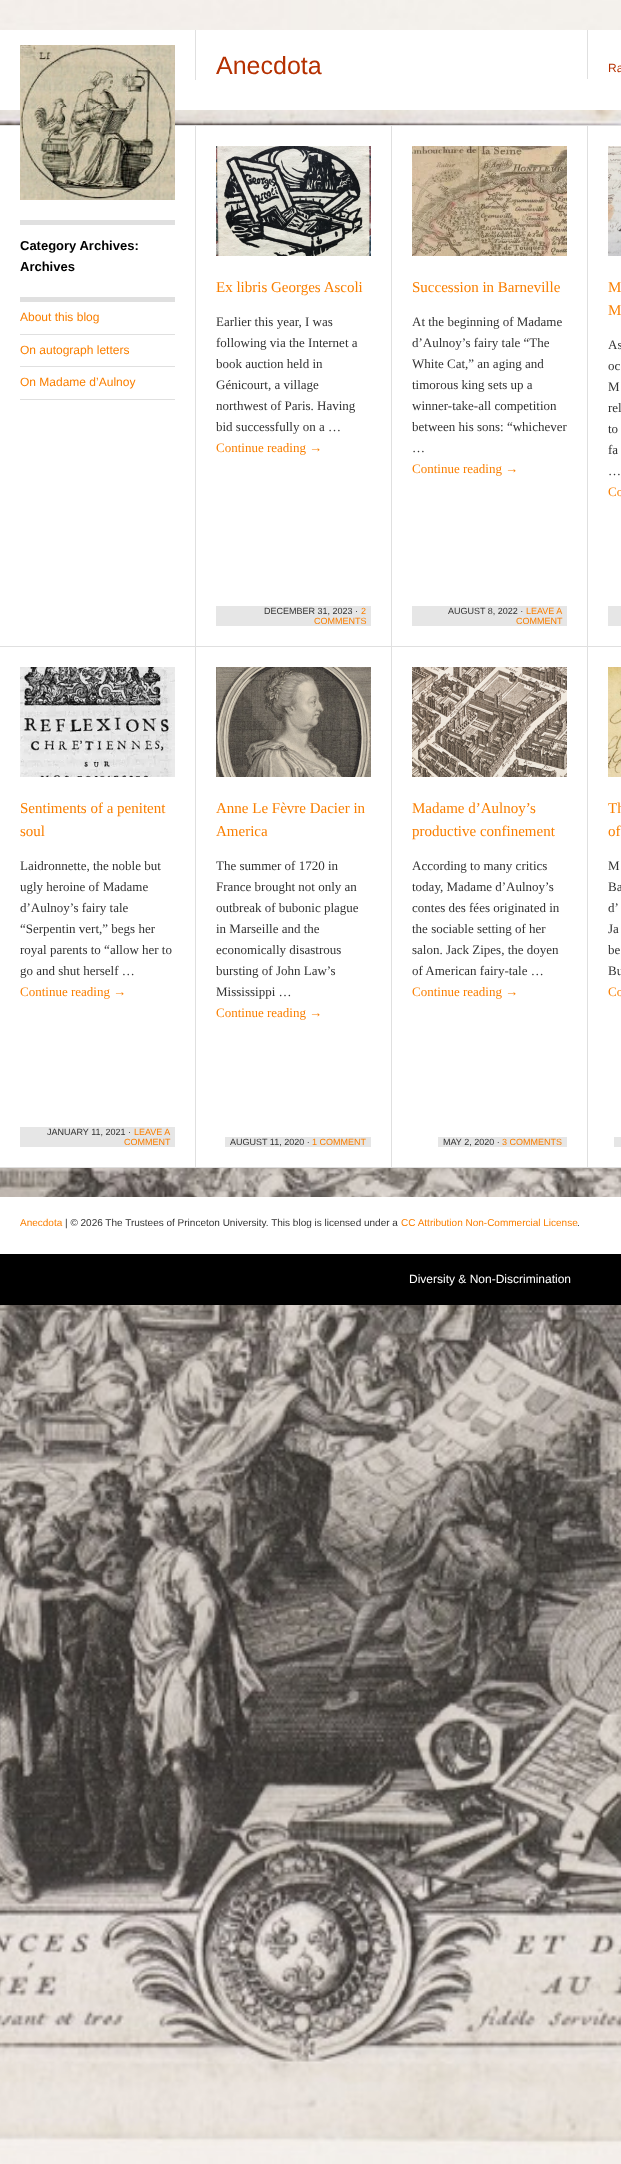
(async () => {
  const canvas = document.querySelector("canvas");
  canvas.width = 621;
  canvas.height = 2164;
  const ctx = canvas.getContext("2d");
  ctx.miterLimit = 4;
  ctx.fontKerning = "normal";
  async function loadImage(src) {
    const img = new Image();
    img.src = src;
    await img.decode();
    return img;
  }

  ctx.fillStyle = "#ffffff";
  ctx.fillRect(0, 0, 621, 2164);
  ctx.drawImage(await loadImage("img/1.png"), 0, 0, 621, 2164);
  for (const [x, y, w, h, color] of [
    [0, 30, 621, 80, "#ffffff"],
    [0, 126, 621, 1041, "#ffffff"],
    [0, 125, 621, 1, "#e0e0e0"],
  ]) {
    ctx.fillStyle = color;
    ctx.fillRect(x, y, w, h);
  }
  ctx.drawImage(await loadImage("img/2.png"), 20, 45, 155, 155);
  for (const [x, y, w, h, color] of [
    [195, 30, 1, 50, "#e0e0e0"],
    [587, 30, 1, 49, "#e0e0e0"],
    [195, 125, 1, 521, "#e0e0e0"],
    [20, 220, 155, 5, "#e0e0e0"],
    [20, 297, 155, 5, "#e0e0e0"],
    [20, 334, 155, 1, "#e0e0e0"],
    [20, 366, 155, 1, "#e0e0e0"],
    [20, 399, 155, 1, "#e0e0e0"],
    [391, 125, 1, 521, "#e0e0e0"],
  ]) {
    ctx.fillStyle = color;
    ctx.fillRect(x, y, w, h);
  }
  ctx.drawImage(await loadImage("img/3.png"), 216, 146, 155, 110);
  ctx.fillStyle = "#e6e6e6";
  ctx.fillRect(216, 606, 155, 20);
  ctx.fillStyle = "#e0e0e0";
  ctx.fillRect(587, 125, 1, 521);
  ctx.drawImage(await loadImage("img/4.png"), 412, 146, 155, 110);
  ctx.fillStyle = "#e6e6e6";
  ctx.fillRect(412, 606, 155, 20);
  ctx.drawImage(await loadImage("img/5.png"), 608, 146, 13, 110);
  for (const [x, y, w, h, color] of [
    [608, 606, 13, 20, "#e6e6e6"],
    [0, 646, 621, 1, "#e0e0e0"],
    [195, 646, 1, 521, "#e0e0e0"],
  ]) {
    ctx.fillStyle = color;
    ctx.fillRect(x, y, w, h);
  }
  ctx.drawImage(await loadImage("img/6.png"), 20, 667, 155, 110);
  ctx.fillStyle = "#e6e6e6";
  ctx.fillRect(20, 1127, 155, 20);
  ctx.fillStyle = "#e0e0e0";
  ctx.fillRect(391, 646, 1, 521);
  ctx.drawImage(await loadImage("img/7.png"), 216, 667, 155, 110);
  ctx.fillStyle = "#e6e6e6";
  ctx.fillRect(225, 1137, 146, 10);
  ctx.fillStyle = "#e0e0e0";
  ctx.fillRect(587, 646, 1, 521);
  ctx.drawImage(await loadImage("img/8.png"), 412, 667, 155, 110);
  ctx.fillStyle = "#e6e6e6";
  ctx.fillRect(438, 1137, 129, 10);
  ctx.drawImage(await loadImage("img/9.png"), 608, 667, 13, 110);
  for (const [x, y, w, h, color] of [
    [614, 1137, 7, 10, "#e6e6e6"],
    [0, 1167, 621, 1, "#e0e0e0"],
    [0, 1197, 621, 57, "#ffffff"],
    [0, 1254, 621, 51, "#000000"],
  ]) {
    ctx.fillStyle = color;
    ctx.fillRect(x, y, w, h);
  }
  ctx.font = "25px Liberation Sans";
  ctx.fillStyle = "#b53000";
  ctx.fillText("Anecdota", 216, 74);
  ctx.font = "12px Liberation Sans";
  ctx.fillText("Ra", 608, 72);
  ctx.font = "bold 13px Liberation Sans";
  ctx.fillStyle = "#000000";
  ctx.fillText("Category Archives:", 20, 250);
  ctx.fillText("Archives", 20, 271);
  ctx.font = "12px Liberation Sans";
  ctx.fillStyle = "#fa7f00";
  for (const [text, x, y] of [
    ["About this blog", 20, 321],
    ["On autograph letters", 20, 354],
    ["On Madame d’Aulnoy", 20, 386],
  ]) {
    ctx.fillText(text, x, y);
  }
  ctx.font = "15px Liberation Serif";
  ctx.fillText("Ex libris Georges Ascoli", 216, 292);
  ctx.font = "13px Liberation Serif";
  ctx.fillStyle = "#333333";
  for (const [text, x, y] of [
    ["Earlier this year, I was", 216, 326],
    ["following via the Internet a", 216, 347],
    ["book auction held in", 216, 368],
    ["Génicourt, a village", 216, 389],
    ["northwest of Paris. Having", 216, 410],
    ["bid successfully on a …", 216, 431],
  ]) {
    ctx.fillText(text, x, y);
  }
  ctx.fillStyle = "#fa7f00";
  ctx.fillText("Continue reading →", 216, 452);
  ctx.font = "9px Liberation Sans";
  ctx.fillStyle = "#333333";
  ctx.fillText("DECEMBER 31, 2023 ·", 264, 614);
  ctx.fillStyle = "#fa7f00";
  ctx.fillText("2", 361, 614);
  ctx.fillText("COMMENTS", 314, 624);
  ctx.font = "15px Liberation Serif";
  ctx.fillText("Succession in Barneville", 412, 292);
  ctx.font = "13px Liberation Serif";
  ctx.fillStyle = "#333333";
  for (const [text, x, y] of [
    ["At the beginning of Madame", 412, 326],
    ["d’Aulnoy’s fairy tale “The", 412, 347],
    ["White Cat,” an aging and", 412, 368],
    ["timorous king sets up a", 412, 389],
    ["winner-take-all competition", 412, 410],
    ["between his sons: “whichever", 412, 431],
    ["…", 412, 452],
  ]) {
    ctx.fillText(text, x, y);
  }
  ctx.fillStyle = "#fa7f00";
  ctx.fillText("Continue reading →", 412, 473);
  ctx.font = "9px Liberation Sans";
  ctx.fillStyle = "#333333";
  ctx.fillText("AUGUST 8, 2022 ·", 448, 614);
  ctx.fillStyle = "#fa7f00";
  ctx.fillText("LEAVE A", 526, 614);
  ctx.fillText("COMMENT", 516, 624);
  ctx.font = "15px Liberation Serif";
  ctx.fillText("M", 608, 292);
  ctx.fillText("M", 608, 315);
  ctx.font = "13px Liberation Serif";
  ctx.fillStyle = "#333333";
  for (const [text, x, y] of [
    ["As", 608, 349],
    ["oc", 608, 370],
    ["M", 608, 391],
    ["rel", 608, 412],
    ["to", 608, 433],
    ["fa", 608, 454],
    ["…", 608, 475],
  ]) {
    ctx.fillText(text, x, y);
  }
  ctx.fillStyle = "#fa7f00";
  ctx.fillText("Co", 608, 496);
  ctx.font = "15px Liberation Serif";
  ctx.fillText("Sentiments of a penitent", 20, 813);
  ctx.fillText("soul", 20, 836);
  ctx.font = "13px Liberation Serif";
  ctx.fillStyle = "#333333";
  for (const [text, x, y] of [
    ["Laidronnette, the noble but", 20, 870],
    ["ugly heroine of Madame", 20, 891],
    ["d’Aulnoy’s fairy tale", 20, 912],
    ["“Serpentin vert,” begs her", 20, 933],
    ["royal parents to “allow her to", 20, 954],
    ["go and shut herself …", 20, 975],
  ]) {
    ctx.fillText(text, x, y);
  }
  ctx.fillStyle = "#fa7f00";
  ctx.fillText("Continue reading →", 20, 996);
  ctx.font = "9px Liberation Sans";
  ctx.fillStyle = "#333333";
  ctx.fillText("JANUARY 11, 2021 ·", 47, 1135);
  ctx.fillStyle = "#fa7f00";
  ctx.fillText("LEAVE A", 134, 1135);
  ctx.fillText("COMMENT", 124, 1145);
  ctx.font = "15px Liberation Serif";
  ctx.fillText("Anne Le Fèvre Dacier in", 216, 813);
  ctx.fillText("America", 216, 836);
  ctx.font = "13px Liberation Serif";
  ctx.fillStyle = "#333333";
  for (const [text, x, y] of [
    ["The summer of 1720 in", 216, 870],
    ["France brought not only an", 216, 891],
    ["outbreak of bubonic plague", 216, 912],
    ["in Marseille and the", 216, 933],
    ["economically disastrous", 216, 954],
    ["bursting of John Law’s", 216, 975],
    ["Mississippi …", 216, 996],
  ]) {
    ctx.fillText(text, x, y);
  }
  ctx.fillStyle = "#fa7f00";
  ctx.fillText("Continue reading →", 216, 1017);
  ctx.font = "9px Liberation Sans";
  ctx.fillStyle = "#333333";
  ctx.fillText("AUGUST 11, 2020 ·", 230, 1145);
  ctx.fillStyle = "#fa7f00";
  ctx.fillText("1 COMMENT", 312, 1145);
  ctx.font = "15px Liberation Serif";
  ctx.fillText("Madame d’Aulnoy’s", 412, 813);
  ctx.fillText("productive confinement", 412, 836);
  ctx.font = "13px Liberation Serif";
  ctx.fillStyle = "#333333";
  for (const [text, x, y] of [
    ["According to many critics", 412, 870],
    ["today, Madame d’Aulnoy’s", 412, 891],
    ["contes des fées originated in", 412, 912],
    ["the sociable setting of her", 412, 933],
    ["salon. Jack Zipes, the doyen", 412, 954],
    ["of American fairy-tale …", 412, 975],
  ]) {
    ctx.fillText(text, x, y);
  }
  ctx.fillStyle = "#fa7f00";
  ctx.fillText("Continue reading →", 412, 996);
  ctx.font = "9px Liberation Sans";
  ctx.fillStyle = "#333333";
  ctx.fillText("MAY 2, 2020 ·", 443, 1145);
  ctx.fillStyle = "#fa7f00";
  ctx.fillText("3 COMMENTS", 502, 1145);
  ctx.font = "15px Liberation Serif";
  ctx.fillText("Th", 608, 813);
  ctx.fillText("of", 608, 836);
  ctx.font = "13px Liberation Serif";
  ctx.fillStyle = "#333333";
  for (const [text, x, y] of [
    ["M", 608, 870],
    ["Ba", 608, 891],
    ["d’", 608, 912],
    ["Ja", 608, 933],
    ["be", 608, 954],
    ["Bu", 608, 975],
  ]) {
    ctx.fillText(text, x, y);
  }
  ctx.fillStyle = "#fa7f00";
  ctx.fillText("Co", 608, 996);
  ctx.font = "10px Liberation Sans";
  ctx.fillText("Anecdota", 20, 1226);
  ctx.fillStyle = "#333333";
  ctx.fillText("| © 2026 The Trustees of Princeton University. This blog is licensed under a", 65, 1226);
  ctx.fillStyle = "#fa7f00";
  ctx.fillText("CC Attribution Non-Commercial License", 401, 1226);
  ctx.fillStyle = "#333333";
  ctx.fillText(".", 577, 1226);
  ctx.font = "12px Liberation Sans";
  ctx.fillStyle = "#ffffff";
  ctx.fillText("Diversity & Non-Discrimination", 409, 1283);
})();
